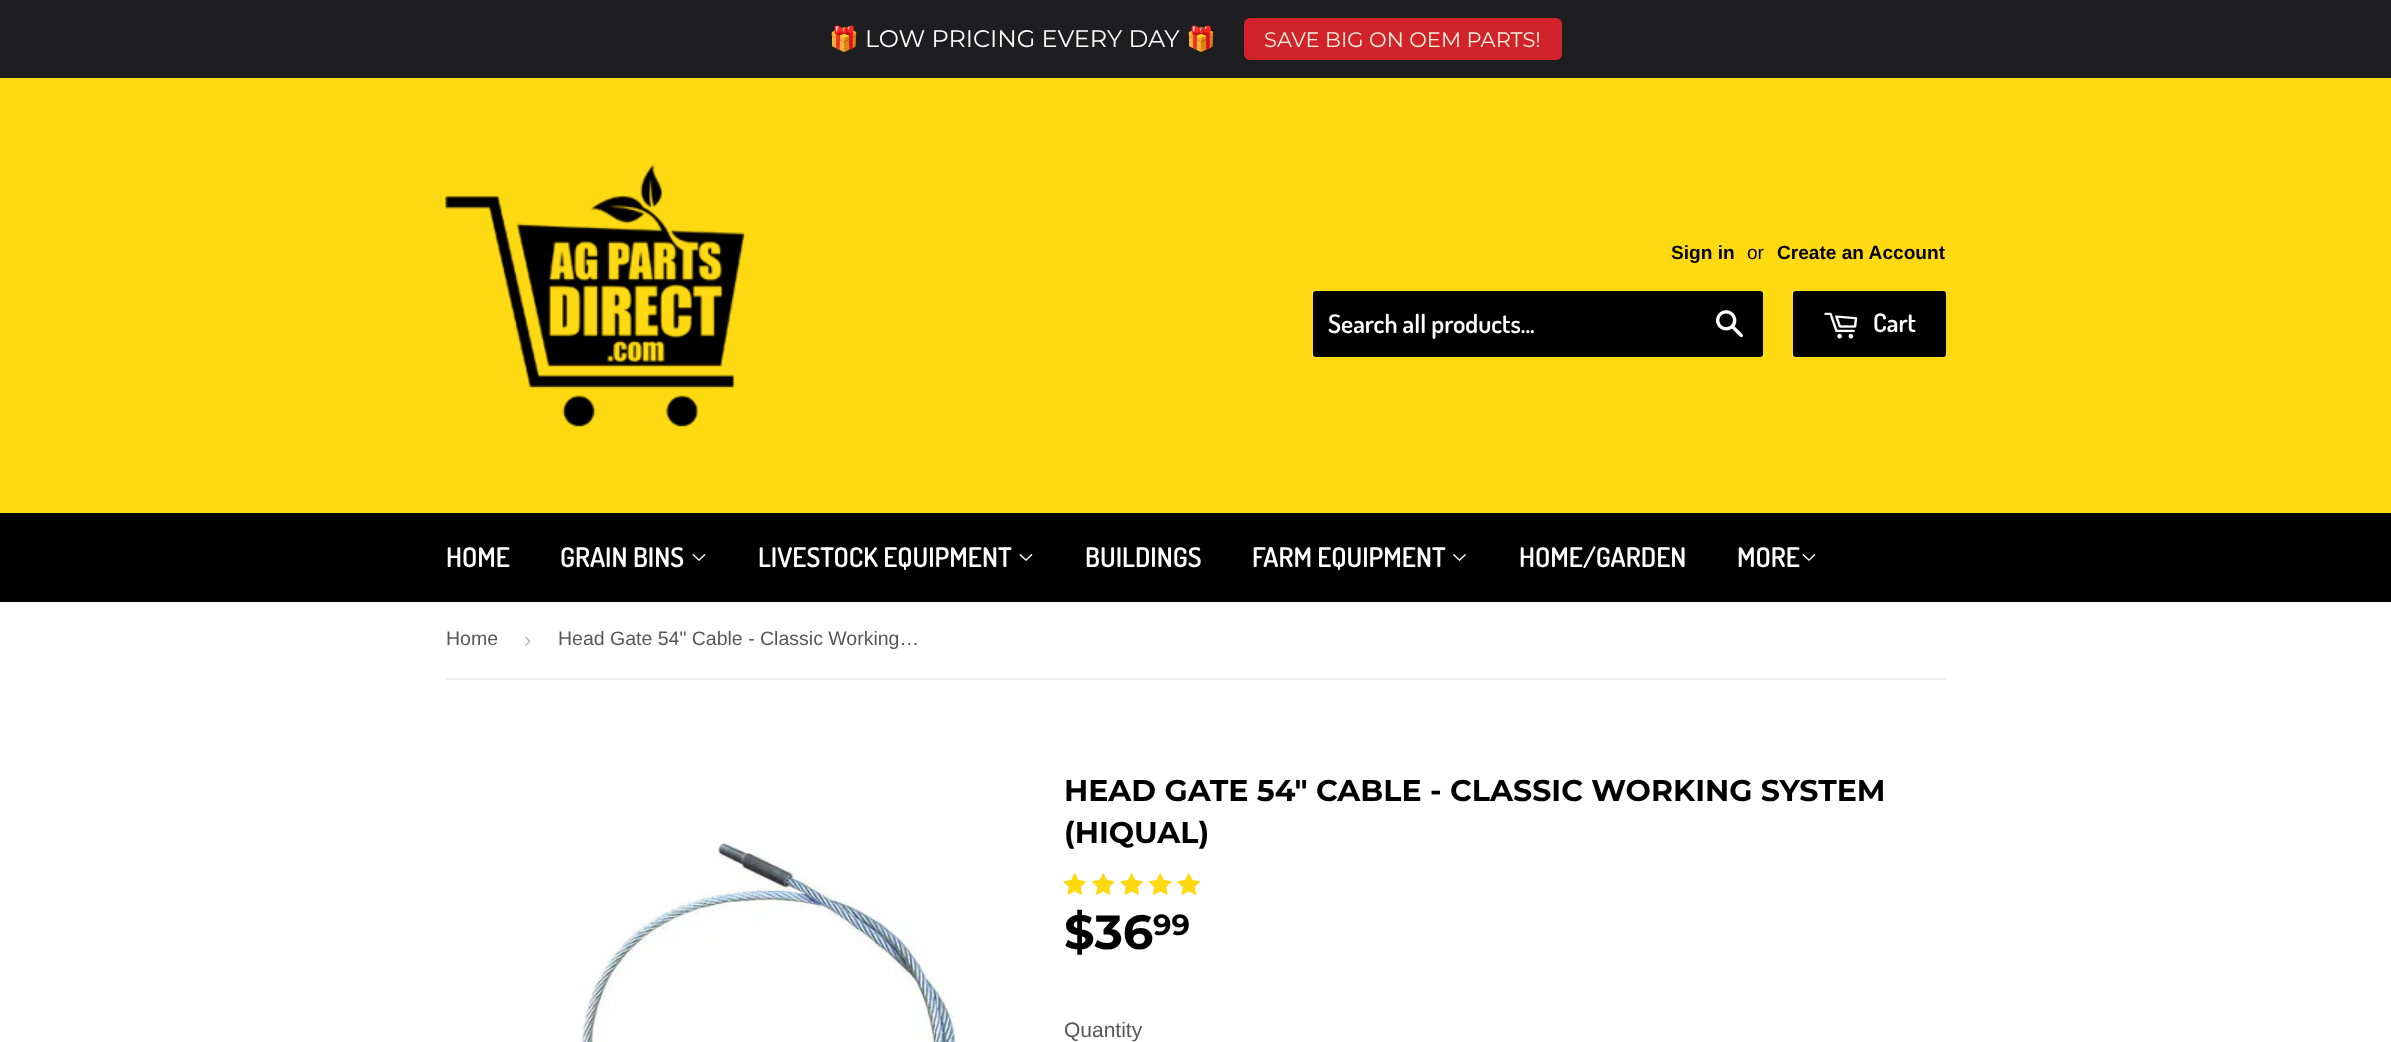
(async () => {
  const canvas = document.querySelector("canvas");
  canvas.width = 2391;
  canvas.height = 1042;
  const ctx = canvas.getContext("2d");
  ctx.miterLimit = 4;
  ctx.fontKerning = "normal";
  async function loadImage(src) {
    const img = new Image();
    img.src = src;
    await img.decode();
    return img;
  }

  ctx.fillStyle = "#ffffff";
  ctx.fillRect(0, 0, 2391, 1042);
  ctx.fillStyle = "#1e1e20";
  ctx.fillRect(0, 0, 2391, 78);
  ctx.fillStyle = "#d2232a";
  ctx.beginPath();
  ctx.roundRect(1244, 18, 318, 42, 6);
  ctx.fill();
  ctx.fillStyle = "#ffd911";
  ctx.fillRect(0, 78, 2391, 435);
  ctx.drawImage(await loadImage("img/1.png"), 445, 164, 300, 263);
  ctx.fillStyle = "#000000";
  ctx.beginPath();
  ctx.roundRect(1313, 291, 450, 66, 3);
  ctx.fill();
  ctx.drawImage(await loadImage("img/2.png"), 1716, 310, 27, 28);
  ctx.beginPath();
  ctx.roundRect(1793, 291, 153, 66, 3);
  ctx.fill();
  ctx.drawImage(await loadImage("img/3.png"), 1824, 312, 34, 27);
  ctx.fillRect(0, 513, 2391, 89);
  ctx.drawImage(await loadImage("img/4.png"), 692, 554, 14, 7);
  ctx.drawImage(await loadImage("img/4.png"), 1019, 554, 14, 7);
  ctx.drawImage(await loadImage("img/5.png"), 1453, 554, 13, 7);
  ctx.drawImage(await loadImage("img/4.png"), 1802, 554, 14, 7);
  ctx.fillStyle = "#ececec";
  ctx.fillRect(446, 678, 1500, 2);
  ctx.drawImage(await loadImage("img/6.png"), 578, 842, 381, 200);
  ctx.drawImage(await loadImage("img/7.png"), 1063, 873, 23, 22);
  ctx.drawImage(await loadImage("img/8.png"), 1092, 873, 23, 22);
  ctx.drawImage(await loadImage("img/7.png"), 1120, 873, 23, 22);
  ctx.drawImage(await loadImage("img/8.png"), 1149, 873, 23, 22);
  ctx.drawImage(await loadImage("img/7.png"), 1177, 873, 23, 22);
  ctx.font = "24px Noto Color Emoji";
  ctx.fillStyle = "#ffffff";
  ctx.fillText("🎁", 829, 47);
  ctx.font = "100 24px 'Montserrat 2'";
  ctx.fillText("LOW PRICING EVERY DAY", 865, 47);
  ctx.font = "24px Noto Color Emoji";
  ctx.fillText("🎁", 1186, 47);
  ctx.font = "100 21px 'Montserrat 2'";
  ctx.fillStyle = "#f7f1e0";
  ctx.fillText("SAVE BIG ON OEM PARTS!", 1264, 47);
  ctx.font = "bold 19.1px Liberation Sans";
  ctx.fillStyle = "#000000";
  ctx.fillText("Sign in", 1671, 259);
  ctx.font = "19.1px Liberation Sans";
  ctx.fillText("or", 1747, 259);
  ctx.font = "bold 19.1px Liberation Sans";
  ctx.fillText("Create an Account", 1777, 259);
  ctx.font = "600 25.5px Dosis";
  ctx.fillStyle = "#ffffff";
  ctx.fillText("Search all products...", 1328, 333);
  ctx.fillText("Cart", 1873, 332);
  ctx.font = "600 27px Dosis";
  for (const [text, x, y] of [
    ["HOME", 446, 567],
    ["GRAIN BINS", 560, 567],
    ["LIVESTOCK EQUIPMENT", 758, 567],
    ["BUILDINGS", 1085, 567],
    ["FARM EQUIPMENT", 1252, 567],
    ["HOME/GARDEN", 1519, 567],
    ["MORE", 1737, 567],
  ]) {
    ctx.fillText(text, x, y);
  }
  ctx.font = "19.5px Liberation Sans";
  ctx.fillStyle = "#585858";
  ctx.fillText("Home", 446, 645);
  ctx.font = "22px Liberation Sans";
  ctx.fillStyle = "#bbbbbb";
  ctx.fillText("›", 524, 647);
  ctx.font = "19.5px Liberation Sans";
  ctx.fillStyle = "#585858";
  ctx.fillText("Head Gate 54\" Cable - Classic Working…", 558, 645);
  ctx.font = "100 30px Montserrat";
  ctx.fillStyle = "#000000";
  ctx.fillText("HEAD GATE 54\" CABLE - CLASSIC WORKING SYSTEM", 1064, 801);
  ctx.fillText("(HIQUAL)", 1064, 843);
  ctx.font = "100 48px Montserrat";
  ctx.fillText("$36", 1064, 949);
  ctx.font = "100 29px Montserrat";
  ctx.fillText("99", 1153, 935);
  ctx.font = "21px Liberation Sans";
  ctx.fillStyle = "#585858";
  ctx.fillText("Quantity", 1064, 1037);
})();
